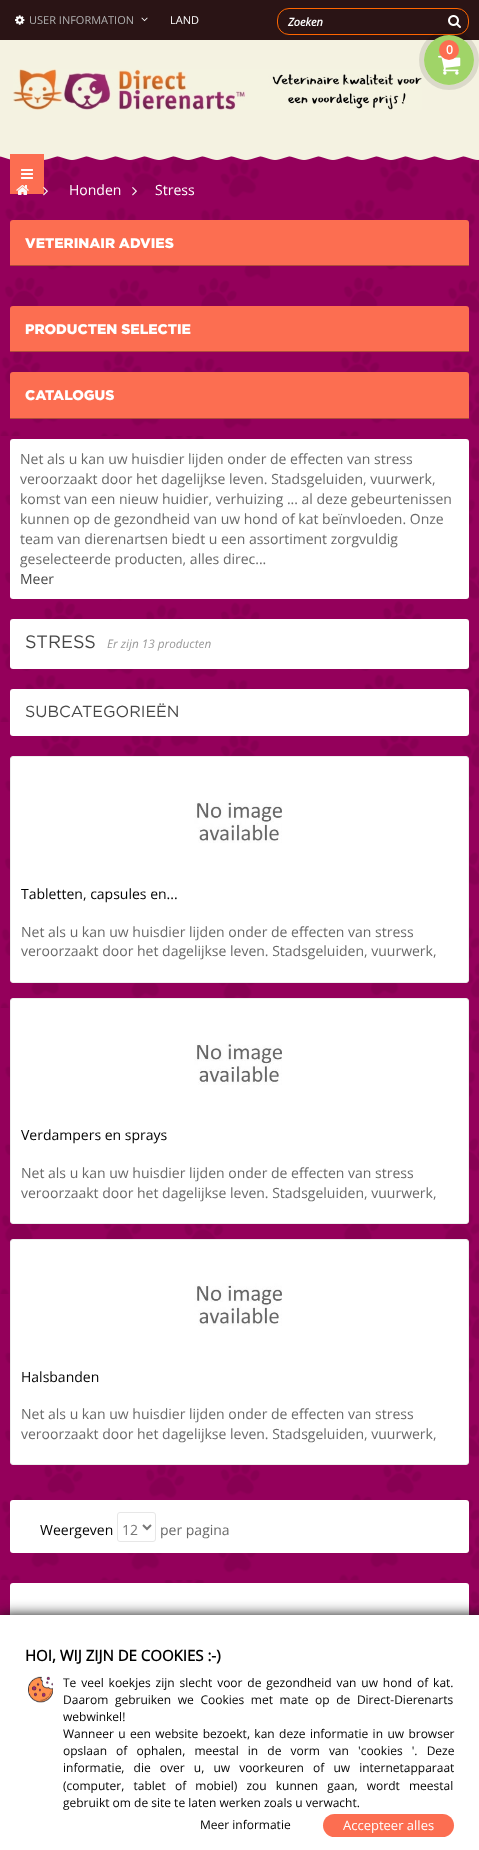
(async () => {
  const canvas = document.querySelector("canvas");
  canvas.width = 479;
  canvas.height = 1850;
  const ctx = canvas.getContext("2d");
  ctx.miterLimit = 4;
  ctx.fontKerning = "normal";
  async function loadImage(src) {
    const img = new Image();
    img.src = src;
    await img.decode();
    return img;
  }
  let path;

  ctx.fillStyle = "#94005b";
  ctx.fillRect(0, 0, 479, 1850);
  ctx.drawImage(await loadImage("img/1.png"), 0, 156, 479, 1459);
  ctx.fillStyle = "#2a1415";
  ctx.fillRect(0, 0, 479, 40);
  ctx.drawImage(await loadImage("img/2.png"), 15, 15, 10, 10);
  ctx.drawImage(await loadImage("img/3.png"), 141, 17, 7, 5);
  ctx.beginPath();
  ctx.roundRect(277.5, 8.5, 191, 26, 11.5);
  ctx.strokeStyle = "#ff6600";
  ctx.stroke();
  ctx.drawImage(await loadImage("img/4.png"), 448, 15, 13, 13);
  ctx.fillStyle = "#f4f2e1";
  ctx.fillRect(0, 40, 479, 114);
  ctx.drawImage(await loadImage("img/7.png"), 13, 69, 409, 41);
  ctx.beginPath();
  ctx.arc(449, 60, 27.5, 0, Math.PI * 2);
  ctx.strokeStyle = "rgba(0, 0, 0, 0.1)";
  ctx.lineWidth = 5;
  ctx.stroke();
  ctx.fillStyle = "#a0d468";
  ctx.beginPath();
  ctx.arc(449, 60, 25, 0, Math.PI * 2);
  ctx.fill();
  ctx.drawImage(await loadImage("img/5.png"), 438, 55, 23, 20);
  ctx.fillStyle = "#fc6e51";
  ctx.beginPath();
  ctx.arc(449, 50, 10, 0, Math.PI * 2);
  ctx.fill();
  ctx.drawImage(await loadImage("img/8.png"), 0, 154, 479, 6);
  ctx.fillRect(10, 154, 34, 40);
  ctx.drawImage(await loadImage("img/6.png"), 21, 169, 12, 10);
  ctx.drawImage(await loadImage("img/9.png"), 16, 185, 13, 10);
  ctx.drawImage(await loadImage("img/10.png"), 43, 187, 5, 9);
  ctx.drawImage(await loadImage("img/11.png"), 132, 187, 5, 9);
  ctx.beginPath();
  ctx.roundRect(10, 220, 459, 46, [3, 3, 0, 0]);
  ctx.fill();
  ctx.fillStyle = "#b04d39";
  ctx.fillRect(10, 265, 459, 1);
  ctx.fillStyle = "#fc6e51";
  ctx.beginPath();
  ctx.roundRect(10, 306, 459, 46, [3, 3, 0, 0]);
  ctx.fill();
  ctx.fillStyle = "#b04d39";
  ctx.fillRect(10, 351, 459, 1);
  ctx.fillStyle = "#fc6e51";
  ctx.beginPath();
  ctx.roundRect(10, 372, 459, 47, [3, 3, 0, 0]);
  ctx.fill();
  ctx.fillStyle = "#b04d39";
  ctx.fillRect(10, 418, 459, 1);
  ctx.fillStyle = "#ffffff";
  ctx.beginPath();
  ctx.roundRect(10, 439, 459, 160, 3);
  ctx.fill();
  ctx.beginPath();
  ctx.roundRect(10, 619, 459, 50, 3);
  ctx.fill();
  ctx.beginPath();
  ctx.roundRect(10, 689, 459, 47, 3);
  ctx.fill();
  ctx.beginPath();
  ctx.roundRect(10.5, 756.5, 458, 226, 2.5);
  ctx.fill();
  ctx.strokeStyle = "#eeeeee";
  ctx.lineWidth = 1;
  ctx.stroke();
  ctx.drawImage(await loadImage("img/12.png"), 194, 800, 88, 43);
  ctx.beginPath();
  ctx.roundRect(10.5, 998.5, 458, 225, 2.5);
  ctx.fill();
  ctx.stroke();
  ctx.drawImage(await loadImage("img/13.png"), 194, 1043, 88, 42);
  ctx.beginPath();
  ctx.roundRect(10.5, 1239.5, 458, 225, 2.5);
  ctx.fill();
  ctx.stroke();
  ctx.drawImage(await loadImage("img/12.png"), 194, 1283, 88, 43);
  ctx.beginPath();
  ctx.roundRect(10, 1500, 459, 53, 3);
  ctx.fill();
  ctx.beginPath();
  ctx.roundRect(117.5, 1512.5, 38, 29, 2.5);
  ctx.strokeStyle = "#e7e7e7";
  ctx.stroke();
  path = new Path2D("M143 1525L147 1529L151 1525");
  ctx.strokeStyle = "#777777";
  ctx.lineWidth = 2;
  ctx.stroke(path);
  ctx.beginPath();
  ctx.roundRect(10, 1583, 459, 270, 3);
  ctx.fill();
  ctx.fillStyle = "#121212";
  ctx.filter = "blur(7px)";
  ctx.beginPath();
  ctx.rect(0, 1615, 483, 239);
  ctx.fill();
  ctx.filter = "none";
  ctx.fillStyle = "#ffffff";
  ctx.fillRect(0, 1615, 479, 235);
  ctx.drawImage(await loadImage("img/14.png"), 28, 1676, 25, 27);
  ctx.fillStyle = "#fc6e51";
  ctx.beginPath();
  ctx.roundRect(323, 1814, 131, 23, 11.5);
  ctx.fill();
  ctx.font = "11px Open Sans";
  ctx.fillStyle = "#b1b1b1";
  ctx.fillText("USER INFORMATION", 29, 24);
  ctx.fillStyle = "#ffffff";
  ctx.fillText("LAND", 170, 24);
  ctx.font = "italic bold 11px Open Sans";
  ctx.fillText("Zoeken", 288, 26);
  ctx.font = "bold 12px Open Sans";
  ctx.fillText("0", 446, 54);
  ctx.font = "14px Open Sans";
  ctx.fillText("Honden", 69, 195);
  ctx.fillText("Stress", 155, 195);
  ctx.font = "900 14px Gotham";
  for (const [text, x, y] of [
    ["VETERINAIR ADVIES", 25, 248],
    ["PRODUCTEN SELECTIE", 25, 334],
    ["CATALOGUS", 25, 400],
  ]) {
    ctx.fillText(text, x, y);
  }
  ctx.font = "14px Open Sans";
  ctx.fillStyle = "#696969";
  for (const [text, x, y] of [
    ["Net als u kan uw huisdier lijden onder de effecten van stress", 20, 464],
    ["veroorzaakt door het dagelijkse leven. Stadsgeluiden, vuurwerk,", 20, 484],
    ["komst van een nieuw huidier, verhuizing ... al deze gebeurtenissen", 20, 504],
    ["kunnen op de gezondheid van uw hond of kat beïnvloeden. Onze", 20, 524],
    ["team van dierenartsen biedt u een assortiment zorgvuldig", 20, 544],
    ["geselecteerde producten, alles direc...", 20, 564],
  ]) {
    ctx.fillText(text, x, y);
  }
  ctx.fillStyle = "#474747";
  ctx.fillText("Meer", 20, 584);
  ctx.font = "18px Gotham";
  ctx.fillText("STRESS", 25, 648);
  ctx.font = "italic 11.75px Open Sans";
  ctx.fillStyle = "#999999";
  ctx.fillText("Er zijn 13 producten", 107, 648);
  ctx.font = "16px Gotham";
  ctx.fillStyle = "#474747";
  ctx.fillText("SUBCATEGORIEËN", 25, 717);
  ctx.font = "14px Open Sans";
  ctx.fillStyle = "#000000";
  ctx.fillText("Tabletten, capsules en...", 21, 899);
  ctx.fillStyle = "#696969";
  ctx.fillText("Net als u kan uw huisdier lijden onder de effecten van stress", 21, 937);
  ctx.fillText("veroorzaakt door het dagelijkse leven. Stadsgeluiden, vuurwerk,", 21, 956);
  ctx.fillStyle = "#000000";
  ctx.fillText("Verdampers en sprays", 21, 1140);
  ctx.fillStyle = "#696969";
  ctx.fillText("Net als u kan uw huisdier lijden onder de effecten van stress", 21, 1178);
  ctx.fillText("veroorzaakt door het dagelijkse leven. Stadsgeluiden, vuurwerk,", 21, 1198);
  ctx.fillStyle = "#000000";
  ctx.fillText("Halsbanden", 21, 1382);
  ctx.fillStyle = "#696969";
  ctx.fillText("Net als u kan uw huisdier lijden onder de effecten van stress", 21, 1419);
  ctx.fillText("veroorzaakt door het dagelijkse leven. Stadsgeluiden, vuurwerk,", 21, 1439);
  ctx.fillStyle = "#000000";
  ctx.fillText("Weergeven", 40, 1535);
  ctx.fillStyle = "#777777";
  ctx.fillText("12", 122, 1535);
  ctx.fillStyle = "#696969";
  ctx.fillText("per pagina", 160, 1535);
  ctx.font = "bold 15px Open Sans";
  ctx.fillStyle = "#000000";
  ctx.fillText("HOI, WIJ ZIJN DE COOKIES :-)", 25, 1661);
  ctx.wordSpacing = "1.75px";
  ctx.font = "12px Open Sans";
  ctx.fillText("Te veel koekjes zijn slecht voor de gezondheid van uw hond of kat.", 63, 1687);
  ctx.wordSpacing = "3.5px";
  ctx.fillText("Daarom gebruiken we Cookies met mate op de Direct-Dierenarts", 63, 1704);
  ctx.wordSpacing = "0px";
  ctx.fillText("webwinkel!", 63, 1721);
  ctx.wordSpacing = "1.25px";
  ctx.fillText("Wanneer u een website bezoekt, kan deze informatie in uw browser", 63, 1738);
  ctx.wordSpacing = "6px";
  for (const [text, x, y] of [
    ["opslaan of ophalen, meestal in de vorm van 'cookies '. Deze", 63, 1755],
    ["informatie, die over u, uw voorkeuren of uw internetapparaat", 63, 1772],
    ["(computer, tablet of mobiel) zou kunnen gaan, wordt meestal", 63, 1790],
  ]) {
    ctx.fillText(text, x, y);
  }
  ctx.wordSpacing = "0px";
  ctx.fillText("gebruikt om de site te laten werken zoals u verwacht.", 63, 1807);
  ctx.fillText("Meer informatie", 200, 1829);
  ctx.font = "13px Open Sans";
  ctx.fillStyle = "#ffffff";
  ctx.fillText("Accepteer alles", 343, 1830);
})();
